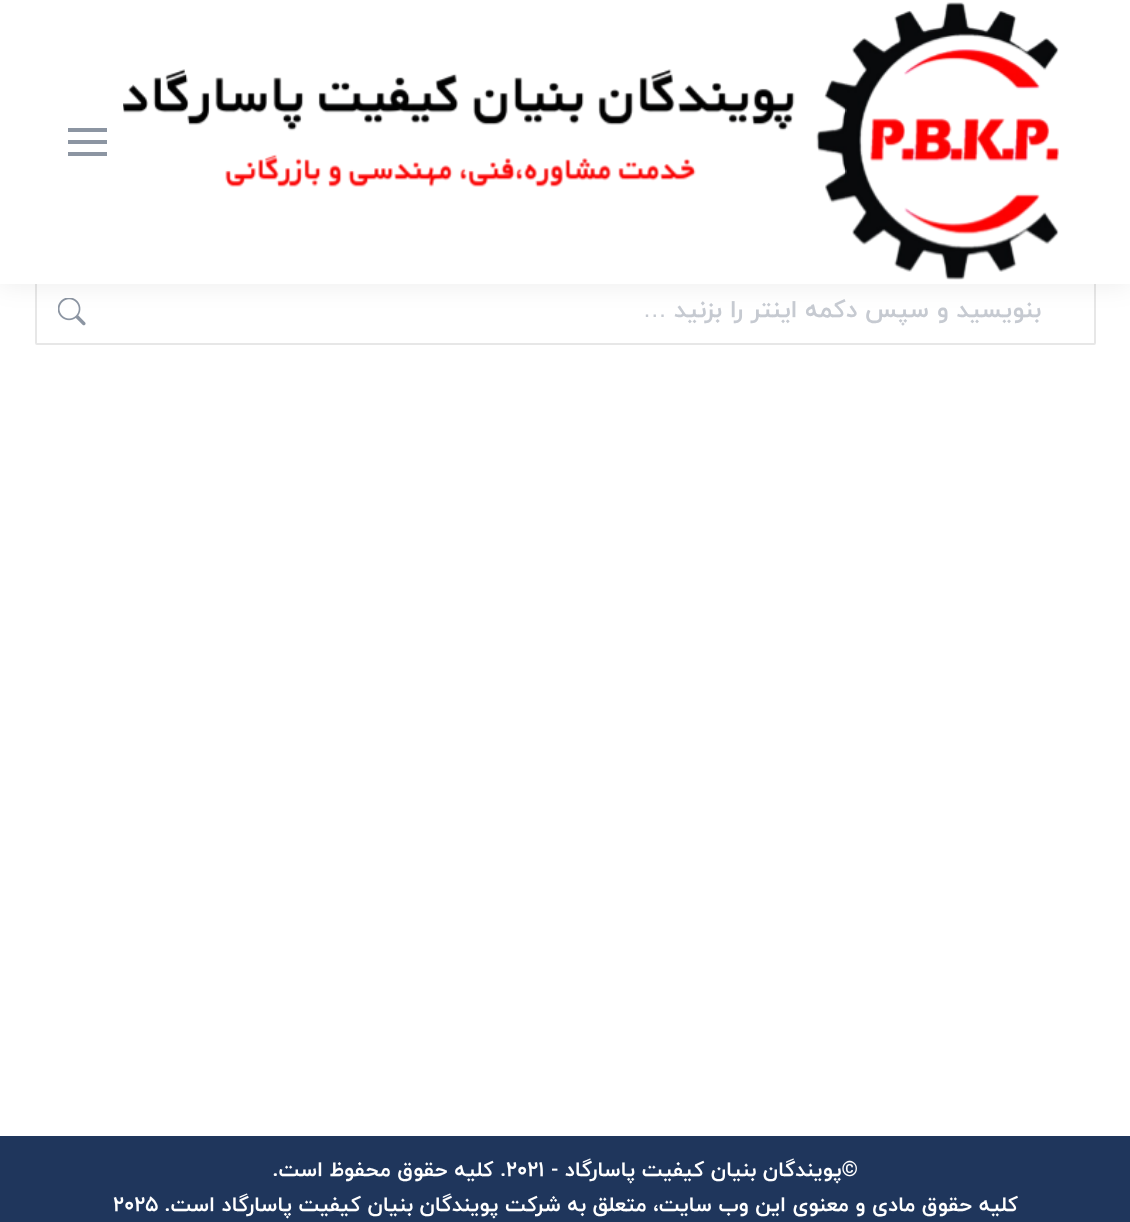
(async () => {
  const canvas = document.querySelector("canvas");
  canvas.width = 1130;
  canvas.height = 1222;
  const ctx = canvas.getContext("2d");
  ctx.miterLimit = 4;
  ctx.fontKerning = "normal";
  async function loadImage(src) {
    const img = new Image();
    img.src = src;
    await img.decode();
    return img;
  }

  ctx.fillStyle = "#ffffff";
  ctx.fillRect(0, 0, 1130, 1222);
  ctx.beginPath();
  ctx.roundRect(36, 279, 1059, 65, 1);
  ctx.strokeStyle = "#e7e7e7";
  ctx.lineWidth = 2;
  ctx.stroke();
  ctx.drawImage(await loadImage("img/2.png"), 58, 298, 28, 28);
  ctx.fillStyle = "rgba(0, 0, 0, 0.07)";
  ctx.filter = "blur(13px)";
  ctx.beginPath();
  ctx.rect(-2, -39, 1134, 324);
  ctx.fill();
  ctx.filter = "none";
  ctx.fillStyle = "#ffffff";
  ctx.fillRect(0, 0, 1130, 284);
  ctx.drawImage(await loadImage("img/1.png"), 123, 2, 936, 278);
  for (const [x, y, w, h, color] of [
    [68, 128, 39, 4, "#8c95a2"],
    [68, 140, 39, 4, "#8c95a2"],
    [68, 152, 39, 4, "#8c95a2"],
    [0, 1136, 1130, 86, "#1f365c"],
  ]) {
    ctx.fillStyle = color;
    ctx.fillRect(x, y, w, h);
  }
  ctx.direction = "rtl";
  ctx.font = "bold 24.5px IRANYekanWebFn";
  ctx.fillStyle = "#c6cad1";
  ctx.fillText("بنویسید و سپس دکمه اینتر را بزنید", 1041, 317);
  ctx.font = "24.5px Liberation Sans";
  ctx.fillText("…", 667, 317);
  ctx.font = "bold 21px IRANYekanWebFn";
  ctx.fillStyle = "#ffffff";
  ctx.fillText("©پویندگان بنیان کیفیت پاسارگاد -", 858, 1176);
  ctx.direction = "ltr";
  ctx.fillText("2021", 506, 1176);
  ctx.direction = "rtl";
  ctx.fillText(". کلیه حقوق محفوظ است.", 506, 1176);
  ctx.fillText("کلیه حقوق مادی و معنوی این وب سایت، متعلق به شرکت پویندگان بنیان کیفیت پاسارگاد است.", 1018, 1211);
  ctx.direction = "ltr";
  ctx.fillText("2025", 113, 1211);
})();
